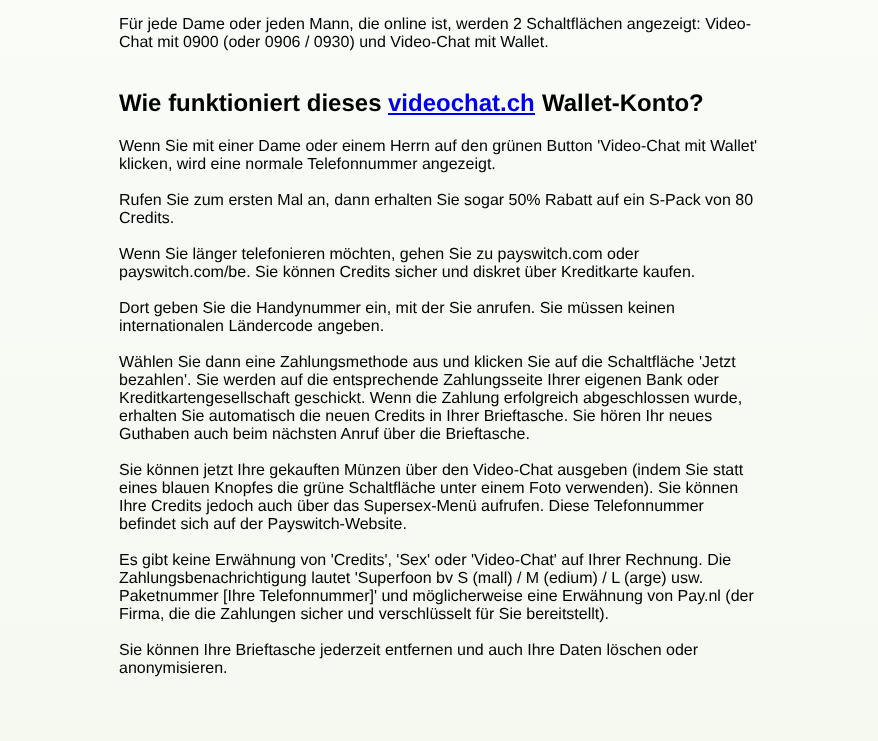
(async () => {
  const canvas = document.querySelector("canvas");
  canvas.width = 878;
  canvas.height = 741;
  const ctx = canvas.getContext("2d");
  ctx.miterLimit = 4;
  ctx.fontKerning = "normal";
  let gradient;

  ctx.fillStyle = "#ffffff";
  ctx.fillRect(0, 0, 878, 741);
  gradient = ctx.createLinearGradient(439, 0, 439, 741);
  gradient.addColorStop(0, "#f9fcf7");
  gradient.addColorStop(1, "#f5f9f0");
  ctx.fillStyle = gradient;
  ctx.fillRect(0, 0, 878, 741);
  ctx.fillStyle = "#0000ee";
  ctx.fillRect(388, 113, 147, 2);
  ctx.font = "16px Liberation Sans";
  ctx.fillStyle = "#000000";
  ctx.fillText("Für jede Dame oder jeden Mann, die online ist, werden 2 Schaltflächen angezeigt: Video-", 119, 29);
  ctx.fillText("Chat mit 0900 (oder 0906 / 0930) und Video-Chat mit Wallet.", 119, 47);
  ctx.font = "bold 24px Liberation Sans";
  ctx.fillText("Wie funktioniert dieses", 119, 111);
  ctx.fillStyle = "#0000ee";
  ctx.fillText("videochat.ch", 388, 111);
  ctx.fillStyle = "#000000";
  ctx.fillText("Wallet-Konto?", 542, 111);
  ctx.font = "16px Liberation Sans";
  for (const [text, x, y] of [
    ["Wenn Sie mit einer Dame oder einem Herrn auf den grünen Button 'Video-Chat mit Wallet'", 119, 151],
    ["klicken, wird eine normale Telefonnummer angezeigt.", 119, 169],
    ["Rufen Sie zum ersten Mal an, dann erhalten Sie sogar 50% Rabatt auf ein S-Pack von 80", 119, 205],
    ["Credits.", 119, 223],
    ["Wenn Sie länger telefonieren möchten, gehen Sie zu payswitch.com oder", 119, 259],
    ["payswitch.com/be. Sie können Credits sicher und diskret über Kreditkarte kaufen.", 119, 277],
    ["Dort geben Sie die Handynummer ein, mit der Sie anrufen. Sie müssen keinen", 119, 313],
    ["internationalen Ländercode angeben.", 119, 331],
    ["Wählen Sie dann eine Zahlungsmethode aus und klicken Sie auf die Schaltfläche 'Jetzt", 119, 367],
    ["bezahlen'. Sie werden auf die entsprechende Zahlungsseite Ihrer eigenen Bank oder", 119, 385],
    ["Kreditkartengesellschaft geschickt. Wenn die Zahlung erfolgreich abgeschlossen wurde,", 119, 403],
    ["erhalten Sie automatisch die neuen Credits in Ihrer Brieftasche. Sie hören Ihr neues", 119, 421],
    ["Guthaben auch beim nächsten Anruf über die Brieftasche.", 119, 439],
    ["Sie können jetzt Ihre gekauften Münzen über den Video-Chat ausgeben (indem Sie statt", 119, 475],
    ["eines blauen Knopfes die grüne Schaltfläche unter einem Foto verwenden). Sie können", 119, 493],
    ["Ihre Credits jedoch auch über das Supersex-Menü aufrufen. Diese Telefonnummer", 119, 511],
    ["befindet sich auf der Payswitch-Website.", 119, 529],
    ["Es gibt keine Erwähnung von 'Credits', 'Sex' oder 'Video-Chat' auf Ihrer Rechnung. Die", 119, 565],
    ["Zahlungsbenachrichtigung lautet 'Superfoon bv S (mall) / M (edium) / L (arge) usw.", 119, 583],
    ["Paketnummer [Ihre Telefonnummer]' und möglicherweise eine Erwähnung von Pay.nl (der", 119, 601],
    ["Firma, die die Zahlungen sicher und verschlüsselt für Sie bereitstellt).", 119, 619],
    ["Sie können Ihre Brieftasche jederzeit entfernen und auch Ihre Daten löschen oder", 119, 655],
    ["anonymisieren.", 119, 673],
  ]) {
    ctx.fillText(text, x, y);
  }
})();
